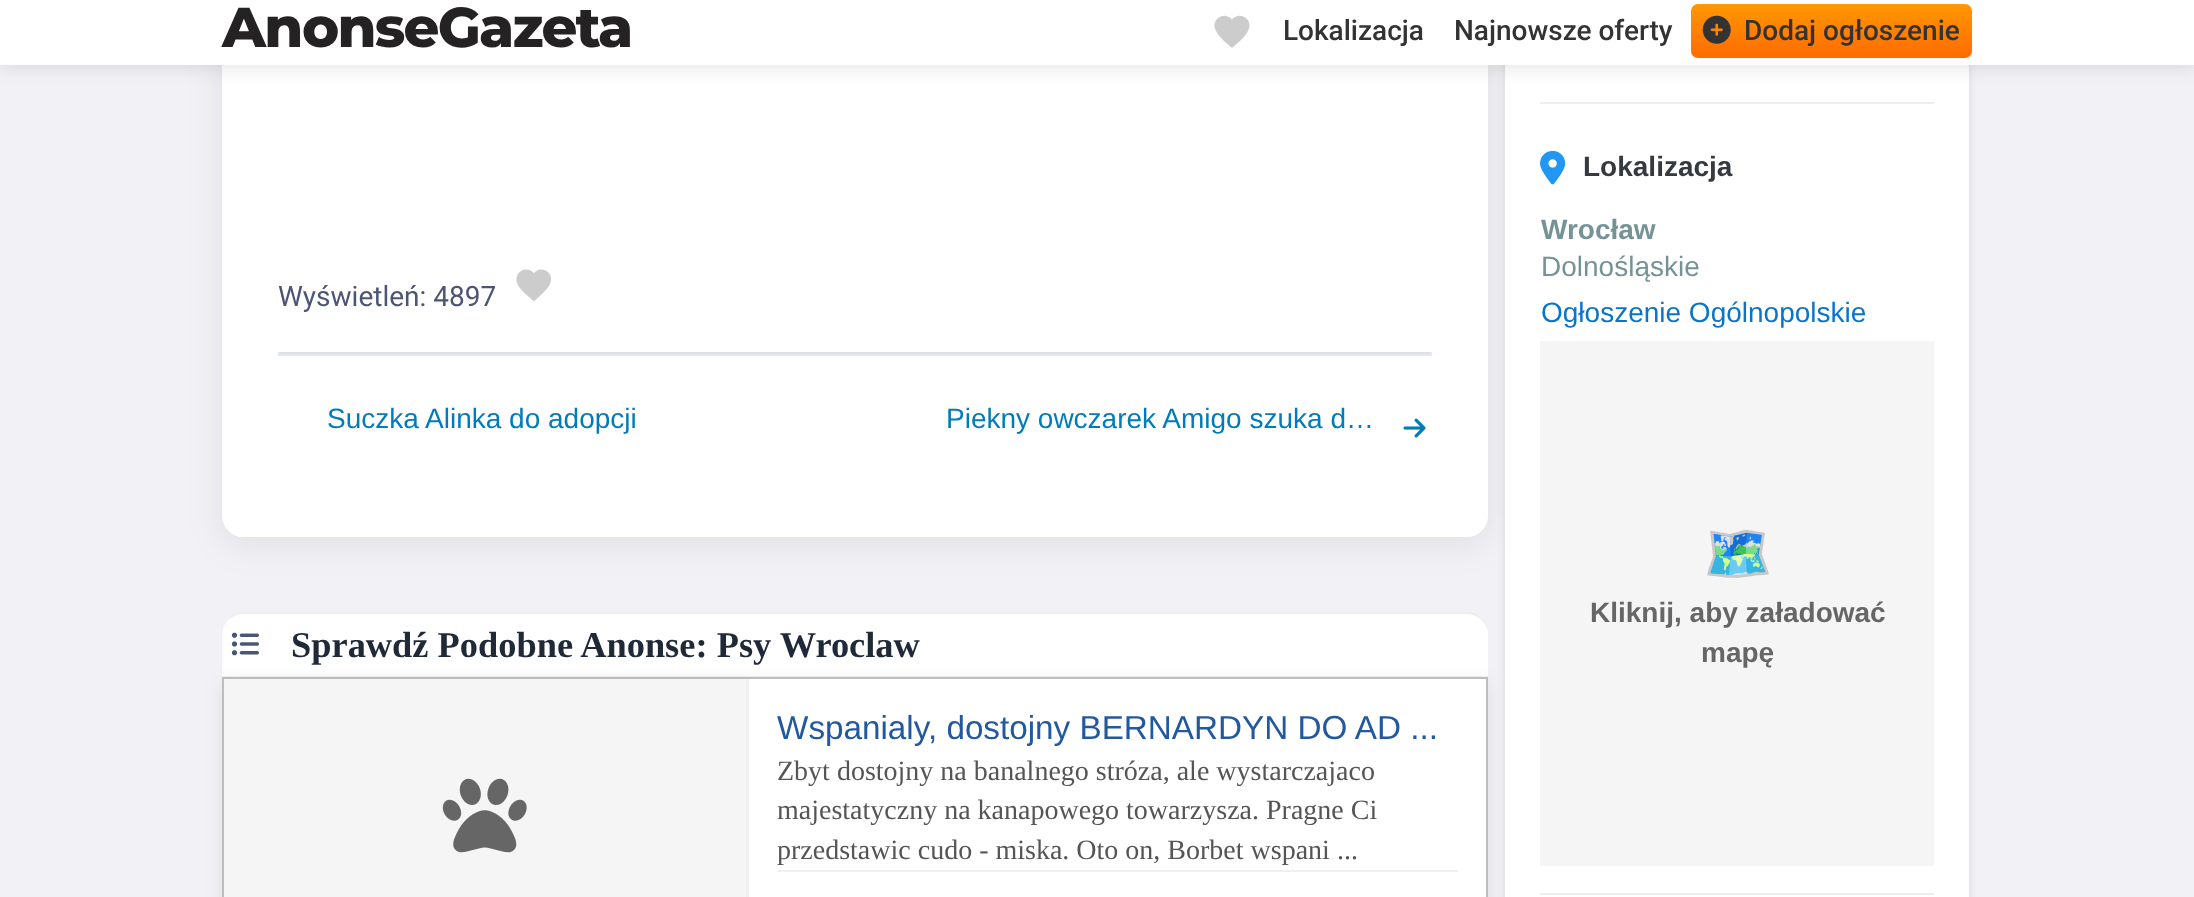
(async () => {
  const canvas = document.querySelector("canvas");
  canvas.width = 2194;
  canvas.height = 897;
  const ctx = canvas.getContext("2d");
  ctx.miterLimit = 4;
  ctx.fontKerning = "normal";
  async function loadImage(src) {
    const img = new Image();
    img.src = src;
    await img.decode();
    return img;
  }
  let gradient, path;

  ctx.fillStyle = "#f2f2f6";
  ctx.fillRect(0, 0, 2194, 897);
  ctx.fillStyle = "rgba(0, 0, 0, 0.08)";
  ctx.filter = "blur(17.5px)";
  ctx.beginPath();
  ctx.roundRect(222, -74, 1266, 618, 21);
  ctx.fill();
  ctx.filter = "none";
  ctx.fillStyle = "#ffffff";
  ctx.beginPath();
  ctx.roundRect(222, -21, 1266, 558, 21);
  ctx.fill();
  ctx.beginPath();
  ctx.roundRect(222, 613, 1266, 64, [21, 21, 0, 0]);
  ctx.fill();
  ctx.fillStyle = "#f0f0f0";
  ctx.fillRect(222, 676, 1266, 1);
  ctx.drawImage(await loadImage("img/3.png"), 231, 632, 28, 24);
  ctx.fillStyle = "rgba(0, 0, 0, 0.08)";
  ctx.filter = "blur(9px)";
  ctx.beginPath();
  ctx.rect(222, 681, 1266, 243);
  ctx.fill();
  ctx.filter = "none";
  ctx.fillStyle = "rgba(0, 0, 0, 0.1)";
  ctx.filter = "blur(4.5px)";
  ctx.beginPath();
  ctx.roundRect(1505, -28, 464, 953, 14);
  ctx.fill();
  ctx.filter = "none";
  ctx.fillStyle = "#ffffff";
  ctx.fillRect(1505, 65, 464, 832);
  ctx.fillStyle = "rgba(0, 0, 0, 0.1)";
  ctx.filter = "blur(9px)";
  ctx.beginPath();
  ctx.rect(0, 4, 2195, 64);
  ctx.fill();
  ctx.filter = "none";
  ctx.fillStyle = "#ffffff";
  ctx.fillRect(0, 0, 2194, 65);
  ctx.fillStyle = "#cccccc";
  path = new Path2D("M1232 48C1226.5 43 1218.5 37 1215.5 30C1210.5 19 1224.5 10.5 1232 19.5C1239.5 10.5 1253.5 19 1248.5 30C1245.5 37 1237.5 43 1232 48Z");
  ctx.fill(path);
  gradient = ctx.createLinearGradient(1831, 3.5, 1831, 58);
  gradient.addColorStop(0, "#ff9800");
  gradient.addColorStop(1, "#ff6b00");
  ctx.fillStyle = gradient;
  ctx.beginPath();
  ctx.roundRect(1691, 4, 281, 54, 7);
  ctx.fill();
  ctx.drawImage(await loadImage("img/1.png"), 1702, 15, 29, 29);
  ctx.fillStyle = "#cccccc";
  path = new Path2D("M534 301.5C528.5 296.5 520.5 290.5 517.5 284C512.5 272.5 526 264.5 534 273C541.5 264.5 555 272.5 550 284C547 290.5 539 296.5 534 301.5Z");
  ctx.fill(path);
  for (const [x, y, w, h, color] of [
    [278, 352, 1154, 2, "#e0e0e0"],
    [1430, 352, 2, 4, "#e2e8f0"],
    [278, 354, 1154, 2, "#e2e8f0"],
    [278, 352, 2, 4, "#e2e8f0"],
  ]) {
    ctx.fillStyle = color;
    ctx.fillRect(x, y, w, h);
  }
  ctx.drawImage(await loadImage("img/2.png"), 1403, 418, 23, 20);
  ctx.fillStyle = "#eeeeee";
  path = new Path2D("M243 614C233 614 224 621 222 631C222 624 232 613 239 612H1471C1477 613 1488 623 1488 630C1485 621 1476 614 1466 614Z");
  ctx.fill(path);
  ctx.fillStyle = "#ffffff";
  ctx.fillRect(749, 679, 737, 218);
  ctx.strokeStyle = "#bfbcbc";
  ctx.lineWidth = 2;
  ctx.strokeRect(223, 678, 1264, 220);
  ctx.fillStyle = "#f5f5f5";
  ctx.fillRect(224, 679, 522, 218);
  ctx.fillStyle = "#f0f0f0";
  ctx.fillRect(746, 679, 3, 218);
  ctx.drawImage(await loadImage("img/4.png"), 442, 778, 85, 75);
  for (const [x, y, w, h, color] of [
    [777, 870, 681, 2, "#f0f0f0"],
    [1540, 102, 394, 2, "#eeeeee"],
    [1540, 893, 394, 2, "#eeeeee"],
  ]) {
    ctx.fillStyle = color;
    ctx.fillRect(x, y, w, h);
  }
  ctx.drawImage(await loadImage("img/5.png"), 1540, 150, 26, 35);
  ctx.fillStyle = "#f5f5f5";
  ctx.fillRect(1540, 341, 394, 525);
  ctx.letterSpacing = "-1.75px";
  ctx.font = "800 56px Montserrat";
  ctx.fillStyle = "#242222";
  ctx.fillText("AnonseGazeta", 222, 47);
  ctx.letterSpacing = "0px";
  ctx.font = "500 28px Roboto";
  ctx.fillStyle = "#333333";
  for (const [text, x, y] of [
    ["Lokalizacja", 1283, 40],
    ["Najnowsze oferty", 1454, 40],
    ["Dodaj ogłoszenie", 1744, 40],
  ]) {
    ctx.fillText(text, x, y);
  }
  ctx.font = "28px Roboto";
  ctx.fillStyle = "#4d5574";
  ctx.fillText("Wyświetleń: 4897", 278, 306);
  ctx.font = "28px Liberation Sans";
  ctx.fillStyle = "#007cba";
  ctx.fillText("Suczka Alinka do adopcji", 327, 428);
  ctx.fillText("Piekny owczarek Amigo szuka d…", 946, 428);
  ctx.font = "bold 36.4px Liberation Serif";
  ctx.fillStyle = "#1f2937";
  ctx.fillText("Sprawdź Podobne Anonse: Psy Wroclaw", 291, 657);
  ctx.font = "33.25px Liberation Sans";
  ctx.fillStyle = "#21589f";
  ctx.fillText("Wspanialy, dostojny BERNARDYN DO AD ...", 777, 739);
  ctx.font = "28px Liberation Serif";
  ctx.fillStyle = "#555555";
  for (const [text, x, y] of [
    ["Zbyt dostojny na banalnego stróza, ale wystarczajaco", 777, 780],
    ["majestatyczny na kanapowego towarzysza. Pragne Ci", 777, 819],
    ["przedstawic cudo - miska. Oto on, Borbet wspani ...", 777, 859],
  ]) {
    ctx.fillText(text, x, y);
  }
  ctx.font = "bold 28px Liberation Sans";
  ctx.fillStyle = "#343a40";
  ctx.fillText("Lokalizacja", 1583, 176);
  ctx.fillStyle = "#759397";
  ctx.fillText("Wrocław", 1541, 239);
  ctx.font = "28px Liberation Sans";
  ctx.fillText("Dolnośląskie", 1541, 276);
  ctx.fillStyle = "#0a74c8";
  ctx.fillText("Ogłoszenie Ogólnopolskie", 1541, 322);
  ctx.font = "56px Noto Color Emoji";
  ctx.fillStyle = "#666666";
  ctx.fillText("🗺️", 1703, 573);
  ctx.font = "bold 28px Liberation Sans";
  ctx.fillText("Kliknij, aby załadować", 1590, 622);
  ctx.fillText("mapę", 1701, 662);
})();
